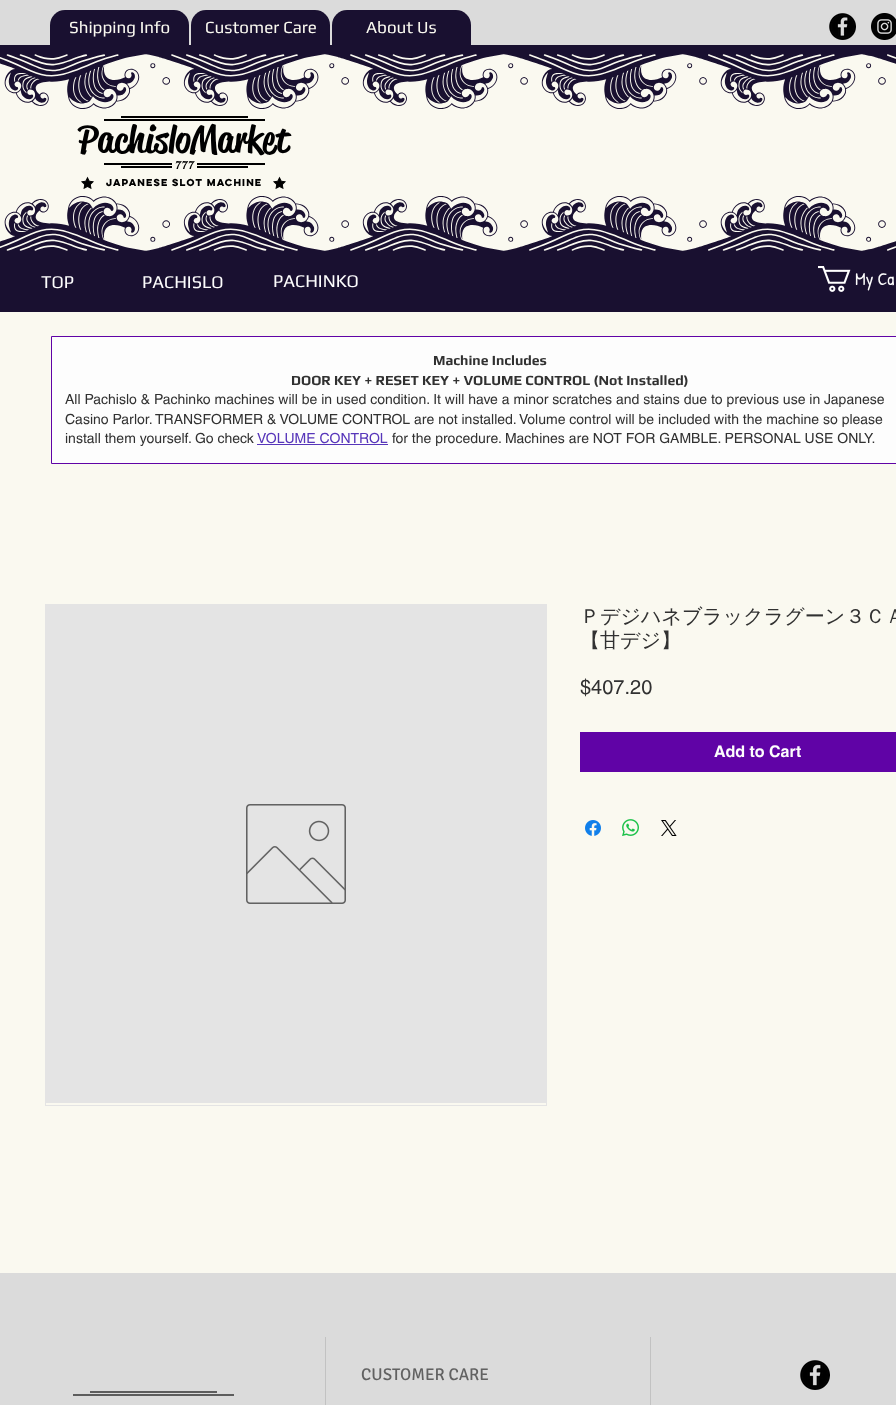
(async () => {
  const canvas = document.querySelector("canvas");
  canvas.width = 896;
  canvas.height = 1405;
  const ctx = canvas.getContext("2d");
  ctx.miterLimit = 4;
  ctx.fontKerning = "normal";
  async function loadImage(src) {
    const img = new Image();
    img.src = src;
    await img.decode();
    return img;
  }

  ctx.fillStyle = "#faf9f0";
  ctx.fillRect(0, 0, 896, 1405);
  ctx.fillStyle = "#dbdbdb";
  ctx.fillRect(0, 0, 896, 45);
  ctx.fillStyle = "#191030";
  ctx.beginPath();
  ctx.roundRect(50, 10, 139, 35, [15, 15, 0, 0]);
  ctx.fill();
  ctx.beginPath();
  ctx.roundRect(191, 10, 139, 35, [15, 15, 0, 0]);
  ctx.fill();
  ctx.beginPath();
  ctx.roundRect(332, 10, 139, 35, [15, 15, 0, 0]);
  ctx.fill();
  ctx.drawImage(await loadImage("img/1.png"), 829, 13, 27, 27);
  ctx.drawImage(await loadImage("img/2.png"), 871, 13, 25, 27);
  ctx.drawImage(await loadImage("img/3.png"), 0, 45, 896, 64);
  ctx.fillStyle = "#000000";
  ctx.fillRect(121, 116, 127, 2);
  ctx.fillRect(104, 119, 161, 2);
  ctx.drawImage(await loadImage("img/4.png"), 81, 176, 13, 13);
  ctx.drawImage(await loadImage("img/4.png"), 273, 176, 13, 13);
  ctx.fillRect(104, 163, 68, 2);
  ctx.drawImage(await loadImage("img/5.png"), 175, 161, 20, 8);
  for (const [x, y, w, h, color] of [
    [197, 163, 68, 2, "#000000"],
    [121, 166, 51, 2, "#000000"],
    [197, 166, 51, 2, "#000000"],
  ]) {
    ctx.fillStyle = color;
    ctx.fillRect(x, y, w, h);
  }
  ctx.drawImage(await loadImage("img/6.png"), 0, 196, 896, 64);
  ctx.fillStyle = "#191030";
  ctx.fillRect(0, 260, 896, 52);
  ctx.drawImage(await loadImage("img/7.png"), 818, 266, 33, 26);
  ctx.fillStyle = "#fdfdfd";
  ctx.beginPath();
  ctx.rect(51.5, 336.5, 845, 127);
  ctx.fill();
  ctx.strokeStyle = "#6003a6";
  ctx.stroke();
  ctx.fillStyle = "#5736ba";
  ctx.fillRect(257, 444, 131, 1);
  ctx.strokeStyle = "#e4e4e4";
  ctx.strokeRect(45.5, 604.5, 501, 501);
  ctx.fillStyle = "#e4e4e4";
  ctx.fillRect(46, 605, 500, 498);
  ctx.drawImage(await loadImage("img/8.png"), 246, 804, 100, 100);
  ctx.fillStyle = "#6003a6";
  ctx.fillRect(580, 732, 316, 40);
  ctx.drawImage(await loadImage("img/9.png"), 585, 820, 16, 16);
  ctx.drawImage(await loadImage("img/10.png"), 622, 819, 17, 17);
  ctx.drawImage(await loadImage("img/11.png"), 661, 820, 16, 16);
  for (const [x, y, w, h, color] of [
    [0, 1273, 896, 132, "#dbdbdb"],
    [325, 1337, 1, 68, "#c2c2c2"],
    [650, 1337, 1, 68, "#c2c2c2"],
  ]) {
    ctx.fillStyle = color;
    ctx.fillRect(x, y, w, h);
  }
  ctx.drawImage(await loadImage("img/12.png"), 800, 1360, 30, 30);
  ctx.fillStyle = "#5d5d5d";
  ctx.fillRect(90, 1391, 127, 2);
  ctx.fillRect(73, 1394, 161, 2);
  ctx.font = "17px Play";
  ctx.fillStyle = "#faf9f0";
  for (const [text, x, y] of [
    ["Shipping Info", 69, 33],
    ["Customer Care", 205, 33],
    ["About Us", 366, 33],
  ]) {
    ctx.fillText(text, x, y);
  }
  ctx.font = "500 37px 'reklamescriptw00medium'";
  ctx.fillStyle = "#000000";
  ctx.fillText("PachisloMarket", 78, 152);
  ctx.letterSpacing = "-0.9px";
  ctx.font = "bold 9px 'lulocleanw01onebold'";
  ctx.fillText("Japanese Slot machine", 106, 186);
  ctx.letterSpacing = "0px";
  ctx.font = "18px Play";
  ctx.fillStyle = "#fdfdfd";
  for (const [text, x, y] of [
    ["TOP", 41, 288],
    ["PACHISLO", 142, 288],
    ["PACHINKO", 273, 287],
  ]) {
    ctx.fillText(text, x, y);
  }
  ctx.font = "18px Patrick Hand";
  ctx.fillText("My Ca", 855, 285);
  ctx.font = "bold 14px Play";
  ctx.fillStyle = "#313131";
  ctx.fillText("Machine Includes", 433, 365);
  ctx.fillText("DOOR KEY + RESET KEY + VOLUME CONTROL (Not Installed)", 291, 385);
  ctx.font = "14px helvetica";
  for (const [text, x, y] of [
    ["All Pachislo & Pachinko machines will be in used condition. It will have a minor scratches and stains due to previous use in Japanese", 65, 404],
    ["Casino Parlor. TRANSFORMER & VOLUME CONTROL are not installed. Volume control will be included with the machine so please", 65, 424],
    ["install them yourself. Go check", 65, 443],
  ]) {
    ctx.fillText(text, x, y);
  }
  ctx.fillStyle = "#5736ba";
  ctx.fillText("VOLUME CONTROL", 257, 443);
  ctx.fillStyle = "#313131";
  ctx.fillText("for the procedure. Machines are NOT FOR GAMBLE. PERSONAL USE ONLY.", 392, 443);
  ctx.font = "500 20px WenQuanYi Zen Hei";
  ctx.fillText("Ｐデジハネブラックラグーン３ＣＡ", 580, 623);
  ctx.fillText("【甘デジ】", 580, 647);
  ctx.font = "20px helvetica";
  ctx.fillText("$407.20", 580, 694);
  ctx.font = "bold 16px helvetica";
  ctx.fillStyle = "#fdfdfd";
  ctx.fillText("Add to Cart", 714, 757);
  ctx.font = "17px Signika";
  ctx.fillStyle = "#616161";
  ctx.fillText("CUSTOMER CARE", 361, 1380);
})();
